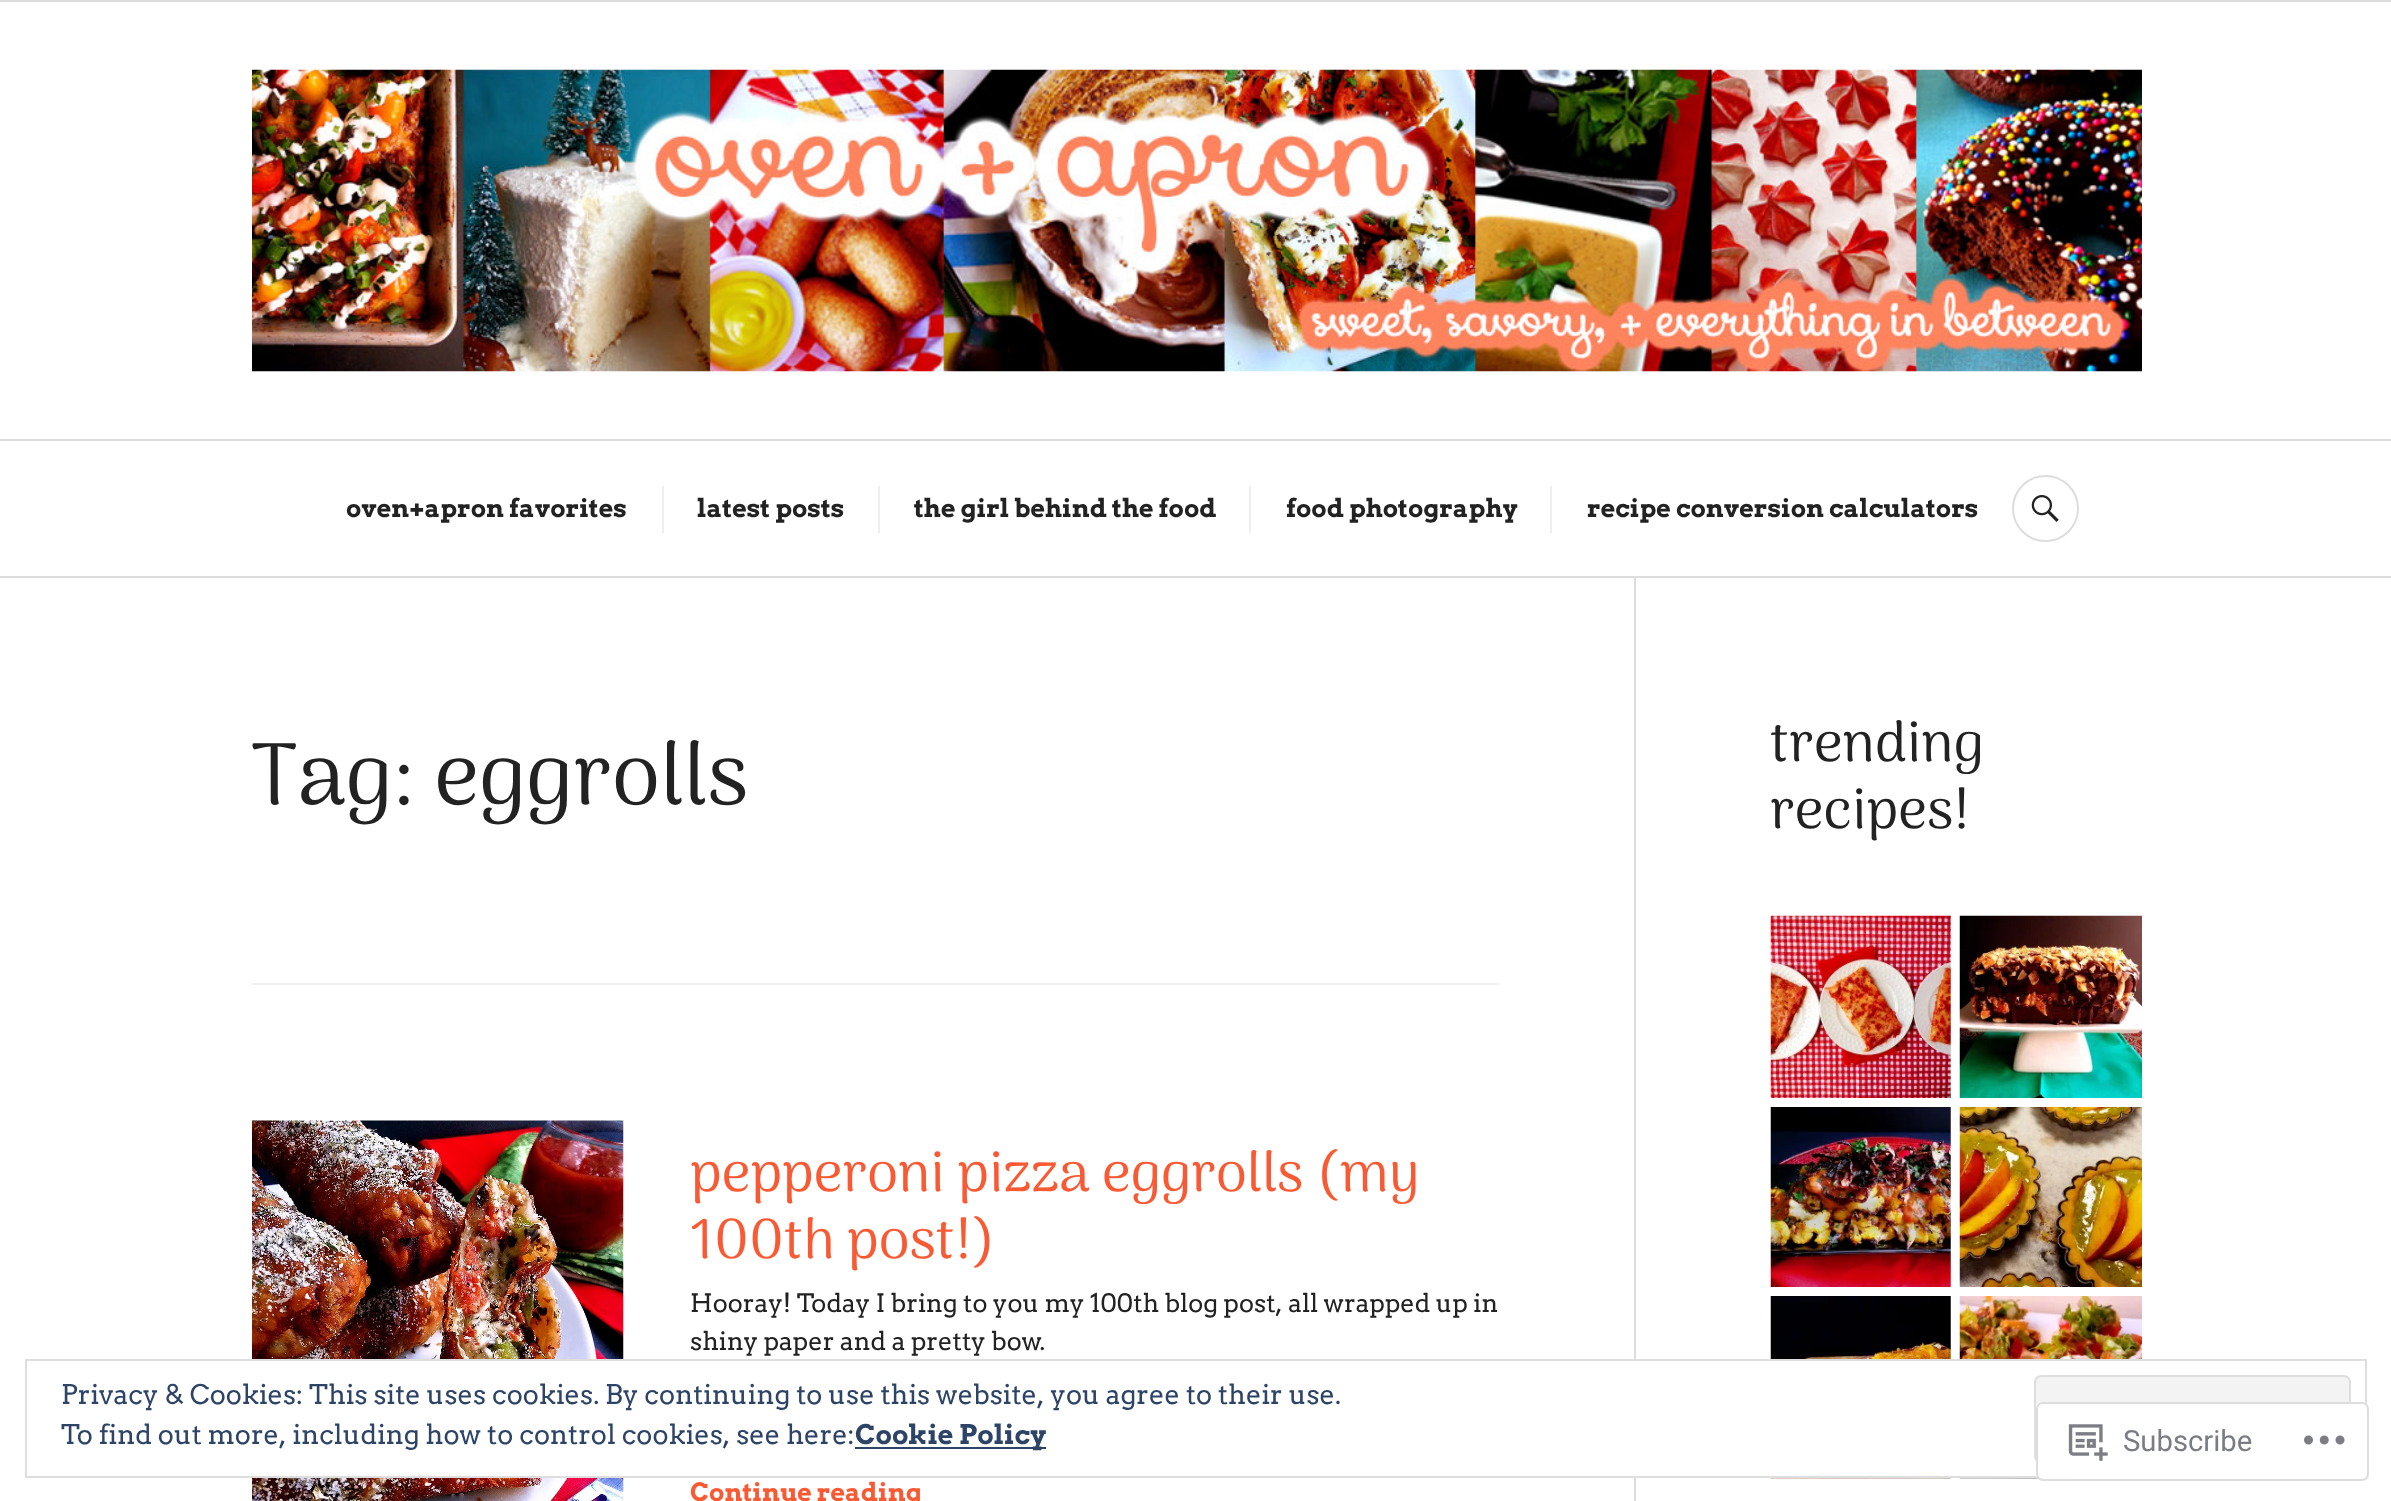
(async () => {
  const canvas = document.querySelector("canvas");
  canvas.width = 2391;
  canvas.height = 1501;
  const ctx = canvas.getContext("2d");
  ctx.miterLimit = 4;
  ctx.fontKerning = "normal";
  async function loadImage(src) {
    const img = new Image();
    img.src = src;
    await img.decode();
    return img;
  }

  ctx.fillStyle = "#ffffff";
  ctx.fillRect(0, 0, 2391, 1501);
  ctx.fillStyle = "#dddddd";
  ctx.fillRect(0, 576, 2391, 2);
  ctx.fillRect(0, 0, 2391, 2);
  ctx.drawImage(await loadImage("img/1.png"), 252, 69, 1890, 303);
  for (const [x, y, w, h, color] of [
    [0, 439, 2391, 2, "#dddddd"],
    [662, 486, 2, 47, "#efefef"],
    [878, 486, 2, 47, "#efefef"],
    [1249, 486, 2, 47, "#efefef"],
    [1550, 486, 2, 47, "#efefef"],
  ]) {
    ctx.fillStyle = color;
    ctx.fillRect(x, y, w, h);
  }
  ctx.beginPath();
  ctx.arc(2045.5, 508.5, 32.5, 0, Math.PI * 2);
  ctx.strokeStyle = "#dddddd";
  ctx.lineWidth = 2;
  ctx.stroke();
  ctx.drawImage(await loadImage("img/2.png"), 2031, 495, 28, 27);
  ctx.fillStyle = "#dddddd";
  ctx.fillRect(1634, 578, 2, 923);
  ctx.fillStyle = "#efefef";
  ctx.fillRect(252, 983, 1247, 2);
  ctx.drawImage(await loadImage("img/3.png"), 252, 1120, 372, 381);
  ctx.drawImage(await loadImage("img/4.png"), 1770, 915, 181, 183);
  ctx.drawImage(await loadImage("img/5.png"), 1959, 915, 183, 183);
  ctx.drawImage(await loadImage("img/6.png"), 1770, 1107, 181, 180);
  ctx.drawImage(await loadImage("img/7.png"), 1959, 1107, 183, 180);
  ctx.drawImage(await loadImage("img/8.png"), 1770, 1296, 181, 183);
  ctx.drawImage(await loadImage("img/9.png"), 1959, 1296, 183, 183);
  ctx.fillStyle = "#ffffff";
  ctx.fillRect(252, 1361, 1890, 115);
  ctx.strokeStyle = "#dedede";
  ctx.strokeRect(26, 1360, 2340, 117);
  ctx.fillStyle = "#f3f3f3";
  ctx.beginPath();
  ctx.roundRect(2035, 1376, 315, 86, 6);
  ctx.fill();
  ctx.stroke();
  ctx.fillStyle = "#2e4467";
  ctx.fillRect(855, 1447, 191, 2);
  ctx.fillStyle = "rgba(255, 255, 255, 0.98)";
  ctx.beginPath();
  ctx.roundRect(2036, 1402, 333, 79, 7);
  ctx.fill();
  ctx.beginPath();
  ctx.roundRect(2037, 1403, 331, 77, 6);
  ctx.strokeStyle = "rgba(220, 220, 222, 0.98)";
  ctx.stroke();
  ctx.drawImage(await loadImage("img/10.png"), 2068, 1424, 40, 37);
  ctx.drawImage(await loadImage("img/11.png"), 2304, 1435, 41, 10);
  ctx.font = "bold 25.2px Arvo";
  ctx.fillStyle = "#222222";
  for (const [text, x, y] of [
    ["oven+apron favorites", 346, 517],
    ["latest posts", 697, 517],
    ["the girl behind the food", 914, 517],
    ["food photography", 1286, 517],
    ["recipe conversion calculators", 1587, 517],
  ]) {
    ctx.fillText(text, x, y);
  }
  ctx.font = "87.75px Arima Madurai";
  ctx.fillText("Tag: eggrolls", 251, 804);
  ctx.font = "56.25px Arima Madurai";
  ctx.fillStyle = "#f95a33";
  ctx.fillText("pepperoni pizza eggrolls (my", 690, 1191);
  ctx.fillText("100th post!)", 690, 1258);
  ctx.font = "25.2px Arvo";
  ctx.fillStyle = "#222222";
  ctx.fillText("Hooray! Today I bring to you my 100th blog post, all wrapped up in", 690, 1312);
  ctx.fillText("shiny paper and a pretty bow.", 690, 1350);
  ctx.font = "bold 25.2px Arvo";
  ctx.fillStyle = "#f95a33";
  ctx.fillText("Continue reading", 690, 1501);
  ctx.font = "56.25px Arima Madurai";
  ctx.fillStyle = "#222222";
  ctx.fillText("trending", 1770, 761);
  ctx.fillText("recipes!", 1770, 828);
  ctx.font = "27px Arvo";
  ctx.fillStyle = "#2e4467";
  ctx.fillText("Privacy & Cookies: This site uses cookies. By continuing to use this website, you agree to their use.", 61, 1404);
  ctx.fillText("To find out more, including how to control cookies, see here:", 61, 1444);
  ctx.font = "bold 27px Arvo";
  ctx.fillText("Cookie Policy", 855, 1444);
  ctx.font = "29.25px Roboto";
  ctx.fillStyle = "#7a7e84";
  ctx.fillText("Subscribe", 2123, 1451);
})();
